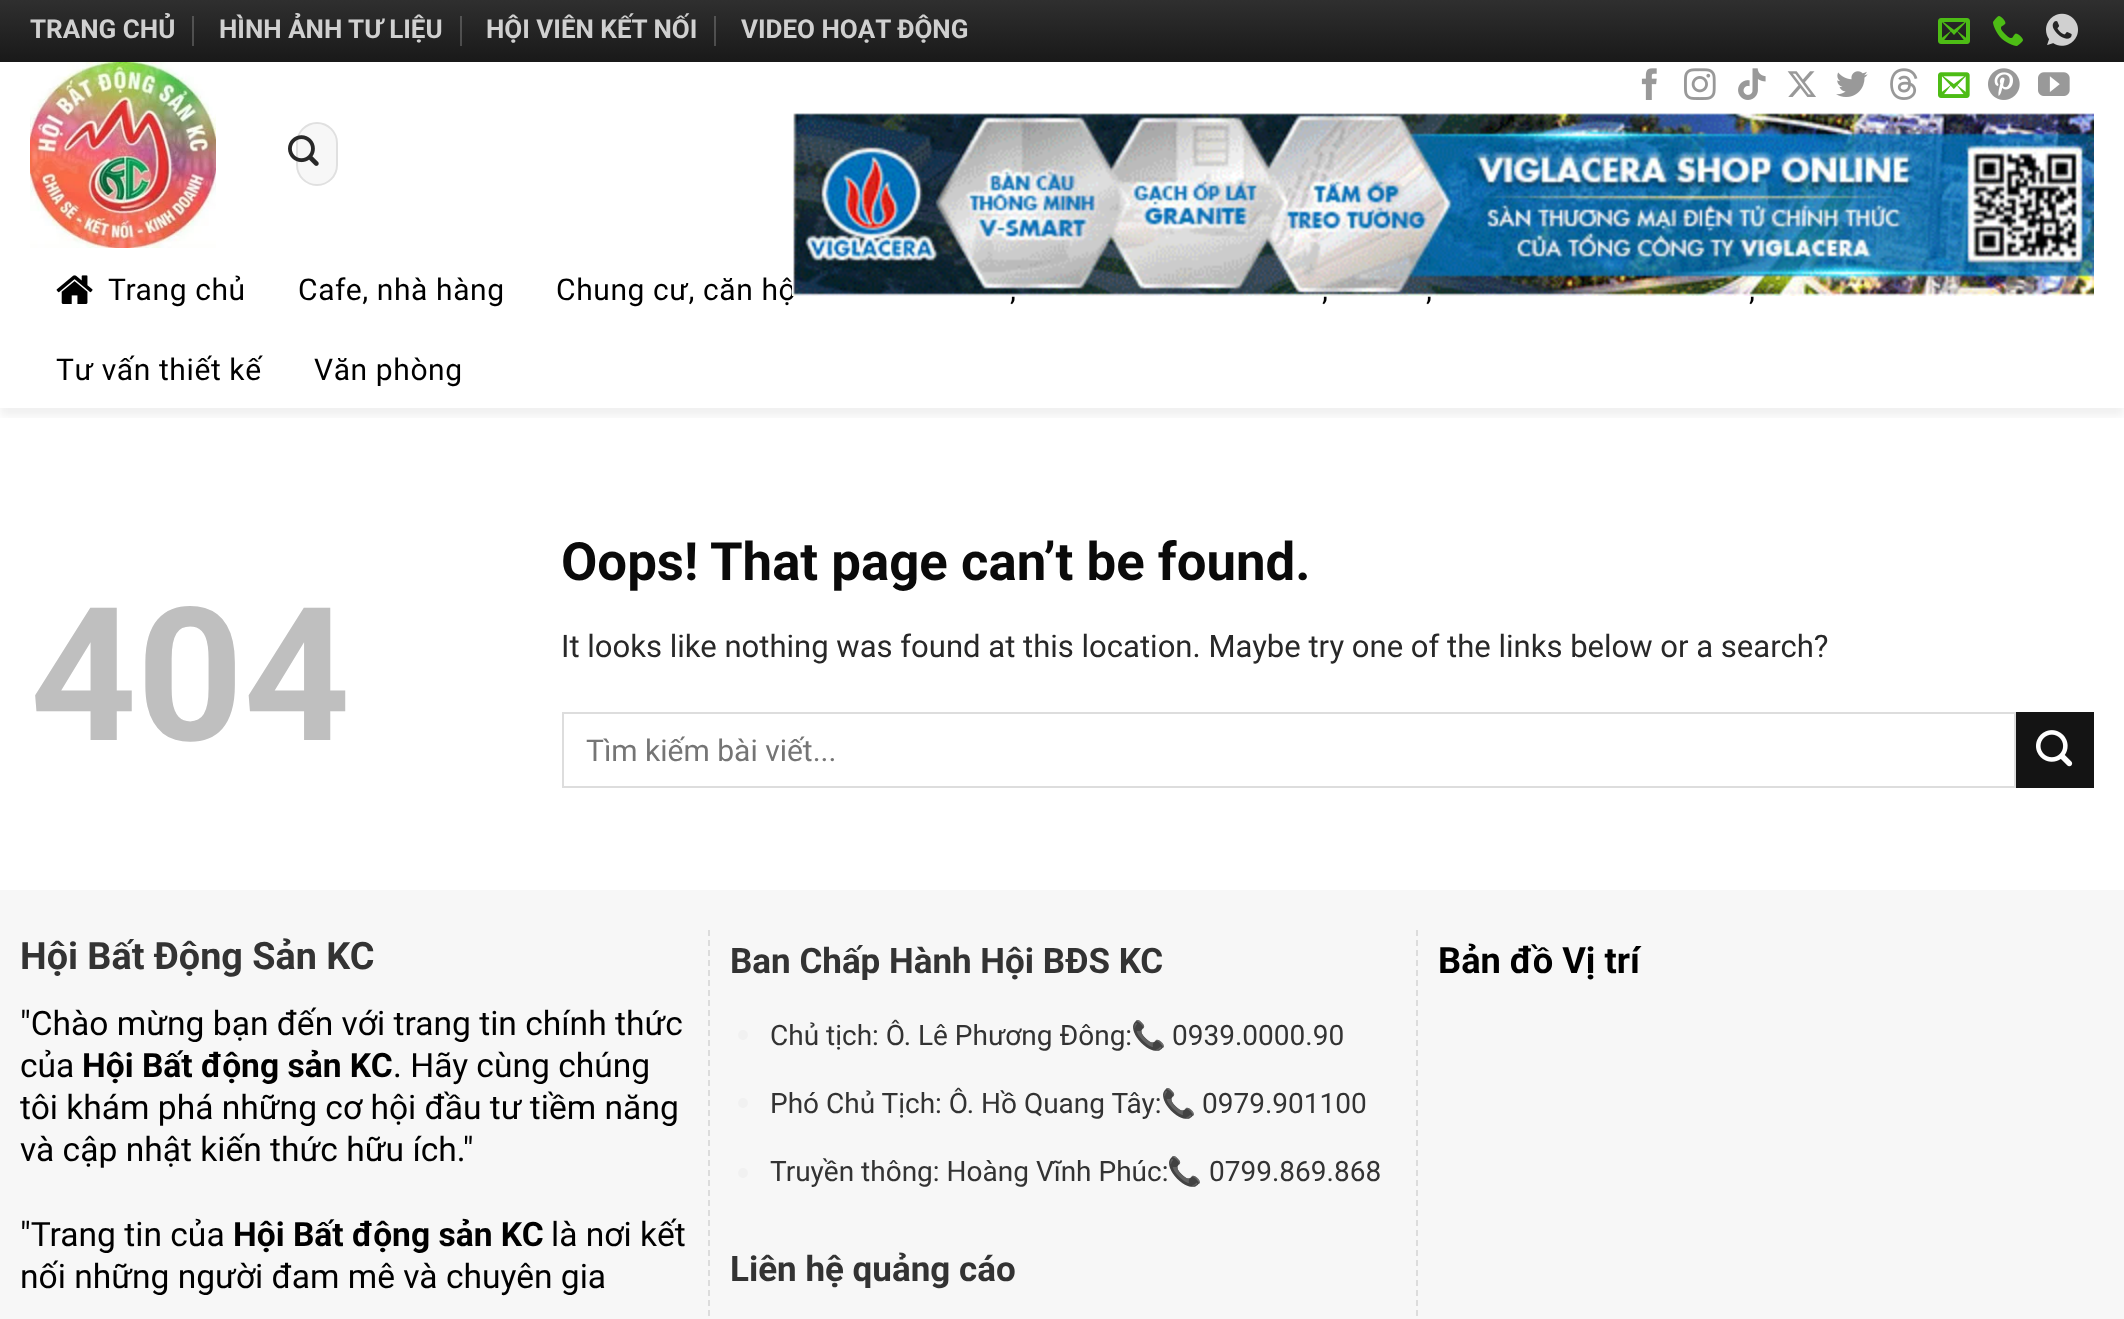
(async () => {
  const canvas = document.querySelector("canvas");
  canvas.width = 2124;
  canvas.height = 1319;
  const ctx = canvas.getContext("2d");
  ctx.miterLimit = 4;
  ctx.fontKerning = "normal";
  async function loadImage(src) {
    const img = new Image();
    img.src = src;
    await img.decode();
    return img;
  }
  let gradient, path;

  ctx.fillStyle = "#ffffff";
  ctx.fillRect(0, 0, 2124, 1319);
  gradient = ctx.createLinearGradient(1062, 0, 1062, 62);
  gradient.addColorStop(0, "#2f2f2f");
  gradient.addColorStop(1, "#191919");
  ctx.fillStyle = gradient;
  ctx.fillRect(0, 0, 2124, 62);
  gradient = ctx.createLinearGradient(1062, 0, 1062, 62);
  gradient.addColorStop(0, "#595959");
  gradient.addColorStop(1, "#474747");
  ctx.fillStyle = gradient;
  ctx.fillRect(714, 16, 2, 30);
  ctx.fillRect(460, 16, 2, 30);
  ctx.fillRect(192, 16, 2, 30);
  ctx.drawImage(await loadImage("img/1.png"), 1938, 18, 32, 26);
  ctx.drawImage(await loadImage("img/2.png"), 1993, 16, 30, 30);
  ctx.drawImage(await loadImage("img/3.png"), 2046, 13, 32, 33);
  ctx.save();
  ctx.beginPath();
  ctx.rect(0, 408, 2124, 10);
  ctx.clip();
  ctx.fillStyle = "rgba(0, 0, 0, 0.06)";
  ctx.filter = "blur(5px)";
  ctx.beginPath();
  ctx.rect(0, 256, 2124, 160);
  ctx.fill();
  ctx.filter = "none";
  ctx.restore();
  ctx.drawImage(await loadImage("img/4.png"), 30, 62, 186, 186);
  ctx.fillStyle = "#f7f7f7";
  ctx.beginPath();
  ctx.roundRect(296, 122, 42, 64, 21);
  ctx.fill();
  ctx.beginPath();
  ctx.roundRect(297, 123, 40, 62, 20);
  ctx.strokeStyle = "rgba(0, 0, 0, 0.09)";
  ctx.lineWidth = 2;
  ctx.stroke();
  ctx.drawImage(await loadImage("img/5.png"), 288, 135, 31, 31);
  ctx.drawImage(await loadImage("img/6.png"), 1641, 68, 16, 32);
  ctx.drawImage(await loadImage("img/7.png"), 1684, 68, 32, 32);
  ctx.drawImage(await loadImage("img/8.png"), 1738, 68, 28, 32);
  ctx.drawImage(await loadImage("img/9.png"), 1787, 71, 29, 26);
  ctx.drawImage(await loadImage("img/10.png"), 1836, 71, 32, 26);
  ctx.drawImage(await loadImage("img/11.png"), 1890, 68, 28, 32);
  ctx.drawImage(await loadImage("img/12.png"), 1938, 72, 32, 26);
  ctx.drawImage(await loadImage("img/13.png"), 1988, 68, 32, 32);
  ctx.drawImage(await loadImage("img/14.png"), 2038, 72, 32, 24);
  ctx.drawImage(await loadImage("img/16.png"), 56, 275, 37, 29);
  ctx.strokeStyle = "#dddddd";
  ctx.strokeRect(563, 713, 1452, 74);
  ctx.fillStyle = "#141414";
  ctx.fillRect(2016, 712, 78, 76);
  ctx.drawImage(await loadImage("img/17.png"), 2036, 730, 37, 37);
  ctx.fillStyle = "#f7f7f7";
  ctx.fillRect(0, 890, 2124, 429);
  path = new Path2D("M709 930V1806");
  ctx.strokeStyle = "#dcdcdc";
  ctx.setLineDash([6, 4]);
  ctx.stroke(path);
  ctx.fillStyle = "#f1f1f1";
  ctx.beginPath();
  ctx.arc(743, 1035, 5, 0, Math.PI * 2);
  ctx.fill();
  ctx.beginPath();
  ctx.arc(743, 1103, 5, 0, Math.PI * 2);
  ctx.fill();
  ctx.beginPath();
  ctx.arc(743, 1173, 5, 0, Math.PI * 2);
  ctx.fill();
  path = new Path2D("M1417 930V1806");
  ctx.stroke(path);
  ctx.font = "bold 26px Roboto";
  ctx.fillStyle = "#d0d0d0";
  for (const [text, x, y] of [
    ["TRANG CHỦ", 30, 38],
    ["HÌNH ẢNH TƯ LIỆU", 219, 38],
    ["HỘI VIÊN KẾT NỐI", 486, 38],
    ["VIDEO HOẠT ĐỘNG", 741, 38],
  ]) {
    ctx.fillText(text, x, y);
  }
  ctx.letterSpacing = "0.6px";
  ctx.font = "30px Roboto";
  ctx.fillStyle = "#000000";
  for (const [text, x, y] of [
    ["Trang chủ", 108, 300],
    ["Cafe, nhà hàng", 298, 300],
    ["Chung cư, căn hộ", 556, 300],
  ]) {
    ctx.fillText(text, x, y);
  }
  ctx.drawImage(await loadImage("img/15.png"), 792, 113, 1302, 183);
  for (const [text, x, y] of [
    [",", 1010, 300],
    [",", 1322, 300],
    [",", 1426, 300],
    [",", 1749, 300],
    ["Tư vấn thiết kế", 56, 380],
    ["Văn phòng", 314, 380],
  ]) {
    ctx.fillText(text, x, y);
  }
  ctx.letterSpacing = "0px";
  ctx.font = "bold 186px Roboto";
  ctx.fillStyle = "#bfbfbf";
  ctx.fillText("404", 30, 740);
  ctx.font = "bold 52.75px Roboto";
  ctx.fillStyle = "#0a0a0a";
  ctx.fillText("Oops! That page can’t be found.", 561, 580);
  ctx.font = "31.05px Roboto";
  ctx.fillStyle = "#282828";
  ctx.fillText("It looks like nothing was found at this location. Maybe try one of the links below or a search?", 561, 657);
  ctx.font = "30px Roboto";
  ctx.fillStyle = "#757575";
  ctx.fillText("Tìm kiếm bài viết...", 586, 761);
  ctx.font = "bold 37.75px Roboto";
  ctx.fillStyle = "#333333";
  ctx.fillText("Hội Bất Động Sản KC", 20, 969);
  ctx.font = "33.6px Roboto";
  ctx.fillStyle = "#000000";
  ctx.fillText("\"Chào mừng bạn đến với trang tin chính thức", 20, 1035);
  ctx.fillText("của", 20, 1077);
  ctx.font = "bold 33.6px Roboto";
  ctx.fillText("Hội Bất động sản KC", 82, 1077);
  ctx.font = "33.6px Roboto";
  for (const [text, x, y] of [
    [". Hãy cùng chúng", 393, 1077],
    ["tôi khám phá những cơ hội đầu tư tiềm năng", 20, 1119],
    ["và cập nhật kiến thức hữu ích.\"", 20, 1161],
    ["\"Trang tin của", 20, 1246],
  ]) {
    ctx.fillText(text, x, y);
  }
  ctx.font = "bold 33.6px Roboto";
  ctx.fillText("Hội Bất động sản KC", 233, 1246);
  ctx.font = "33.6px Roboto";
  ctx.fillText("là nơi kết", 551, 1246);
  ctx.fillText("nối những người đam mê và chuyên gia", 20, 1288);
  ctx.font = "bold 35px Roboto";
  ctx.fillStyle = "#333333";
  ctx.fillText("Ban Chấp Hành Hội BĐS KC", 730, 973);
  ctx.font = "28px Roboto";
  ctx.fillText("Chủ tịch: Ô. Lê Phương Đông:", 770, 1045);
  ctx.font = "28px Noto Color Emoji";
  ctx.fillText("📞", 1131, 1045);
  ctx.font = "28px Roboto";
  ctx.fillText("0939.0000.90", 1172, 1045);
  ctx.fillText("Phó Chủ Tịch: Ô. Hồ Quang Tây:", 770, 1113);
  ctx.font = "28px Noto Color Emoji";
  ctx.fillText("📞", 1161, 1113);
  ctx.font = "28px Roboto";
  ctx.fillText("0979.901100", 1202, 1113);
  ctx.fillText("Truyền thông: Hoàng Vĩnh Phúc:", 770, 1181);
  ctx.font = "28px Noto Color Emoji";
  ctx.fillText("📞", 1167, 1181);
  ctx.font = "28px Roboto";
  ctx.fillText("0799.869.868", 1209, 1181);
  ctx.font = "bold 35px Roboto";
  ctx.fillText("Liên hệ quảng cáo", 730, 1281);
  ctx.font = "bold 36.25px Roboto";
  ctx.fillStyle = "#000000";
  ctx.fillText("Bản đồ Vị trí", 1438, 973);
})();
